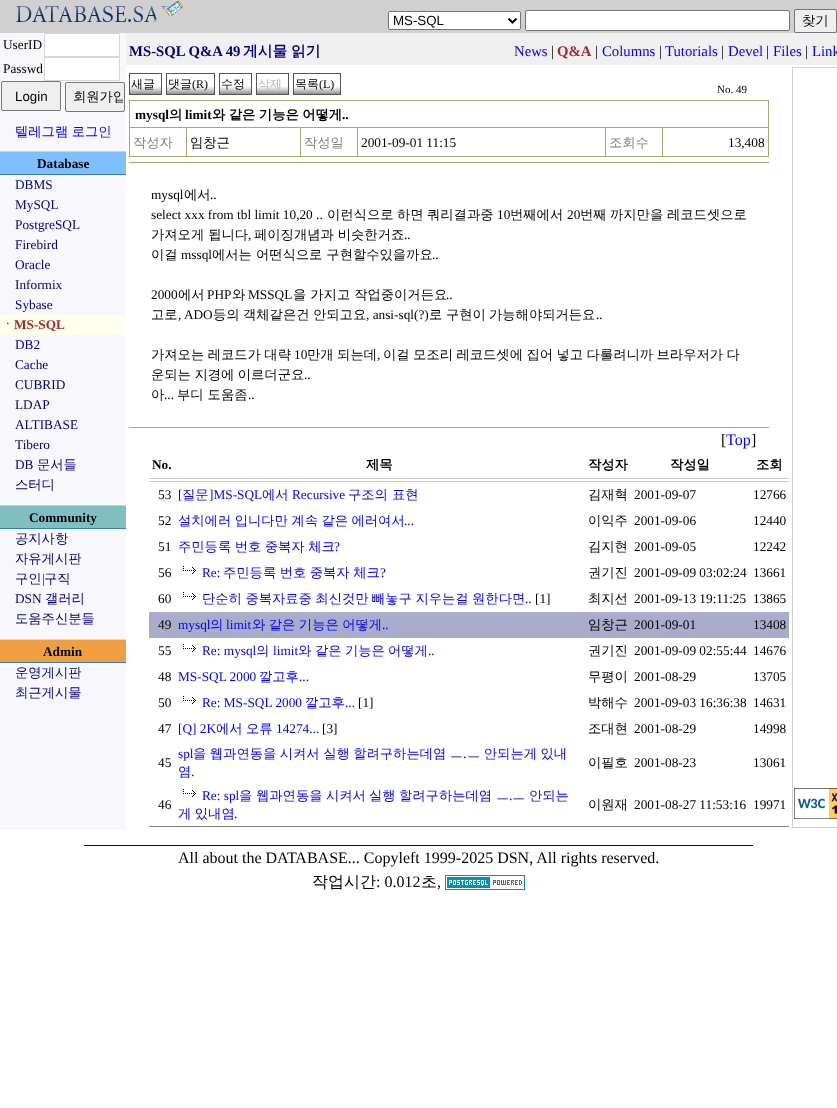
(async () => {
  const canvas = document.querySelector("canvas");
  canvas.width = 837;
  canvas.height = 1108;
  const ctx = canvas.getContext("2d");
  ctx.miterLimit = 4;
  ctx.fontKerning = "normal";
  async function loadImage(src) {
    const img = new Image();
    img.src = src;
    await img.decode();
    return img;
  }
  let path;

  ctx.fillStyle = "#ffffff";
  ctx.fillRect(0, 0, 837, 1108);
  ctx.fillStyle = "#d0d0d0";
  ctx.fillRect(0, 0, 837, 33);
  ctx.drawImage(await loadImage("img/1.png"), 16, 1, 167, 22);
  ctx.fillStyle = "#ffffff";
  ctx.beginPath();
  ctx.roundRect(388.5, 11.5, 132, 18, 1.5);
  ctx.fill();
  ctx.strokeStyle = "#767676";
  ctx.stroke();
  path = new Path2D("M508.5 18.5L512.5 22.5L516.5 18.5");
  ctx.strokeStyle = "#000000";
  ctx.lineWidth = 2;
  ctx.stroke(path);
  ctx.beginPath();
  ctx.roundRect(525.5, 10.5, 264, 20, 1.5);
  ctx.fill();
  ctx.strokeStyle = "#767676";
  ctx.lineWidth = 1;
  ctx.stroke();
  ctx.fillStyle = "#efefef";
  ctx.beginPath();
  ctx.roundRect(794.5, 9.5, 42, 23, 1.5);
  ctx.fill();
  ctx.stroke();
  ctx.fillStyle = "#f7f7fc";
  ctx.fillRect(0, 33, 126, 797);
  ctx.fillStyle = "#ffffff";
  ctx.beginPath();
  ctx.rect(44.5, 33.5, 75, 23);
  ctx.fill();
  ctx.strokeStyle = "#d6d6d6";
  ctx.stroke();
  ctx.beginPath();
  ctx.rect(44.5, 57.5, 75, 23);
  ctx.fill();
  ctx.stroke();
  ctx.fillStyle = "#efefef";
  ctx.beginPath();
  ctx.roundRect(1.5, 81.5, 59, 29, 1.5);
  ctx.fill();
  ctx.strokeStyle = "#767676";
  ctx.stroke();
  ctx.beginPath();
  ctx.roundRect(65.5, 82.5, 59, 29, 1.5);
  ctx.fill();
  ctx.stroke();
  for (const [x, y, w, h, color] of [
    [0, 152, 126, 22, "#80bfff"],
    [0, 151, 126, 1, "#bbd7fc"],
    [0, 174, 126, 1, "#377dc5"],
    [0, 315, 126, 20, "#ffffee"],
    [0, 506, 126, 22, "#7fbfc0"],
    [0, 505, 126, 1, "#a5d8dd"],
    [0, 528, 126, 1, "#377dc5"],
    [0, 640, 126, 22, "#ef9f3f"],
    [0, 639, 126, 1, "#f8d6ae"],
    [0, 662, 126, 1, "#377dc5"],
    [126, 33, 711, 32, "#f0f0f0"],
  ]) {
    ctx.fillStyle = color;
    ctx.fillRect(x, y, w, h);
  }
  ctx.drawImage(await loadImage("img/2.png"), 130, 74, 31, 20);
  ctx.strokeStyle = "#555555";
  ctx.strokeRect(129.5, 73.5, 32, 21);
  ctx.drawImage(await loadImage("img/3.png"), 167, 74, 47, 20);
  ctx.strokeRect(166.5, 73.5, 48, 21);
  ctx.drawImage(await loadImage("img/2.png"), 220, 74, 31, 20);
  ctx.strokeRect(219.5, 73.5, 32, 21);
  ctx.drawImage(await loadImage("img/2.png"), 257, 74, 31, 20);
  ctx.strokeRect(256.5, 73.5, 32, 21);
  ctx.drawImage(await loadImage("img/4.png"), 294, 74, 46, 20);
  ctx.strokeRect(293.5, 73.5, 47, 21);
  for (const [x, y, w, h, color] of [
    [129, 100, 640, 1, "#aca673"],
    [129, 100, 1, 57, "#aca673"],
    [768, 101, 1, 56, "#aca673"],
    [130, 127, 639, 1, "#aca673"],
    [186, 128, 1, 29, "#aca673"],
    [130, 156, 57, 1, "#aca673"],
    [300, 128, 1, 29, "#aca673"],
    [187, 156, 114, 1, "#aca673"],
    [357, 128, 1, 29, "#aca673"],
    [301, 156, 57, 1, "#aca673"],
    [605, 128, 1, 29, "#aca673"],
    [358, 156, 248, 1, "#aca673"],
    [662, 128, 1, 29, "#aca673"],
    [606, 156, 163, 1, "#aca673"],
    [129, 162, 640, 1, "#aca673"],
    [129, 427, 640, 1, "#aca673"],
    [149, 826, 640, 1, "#808080"],
    [149, 478, 640, 1, "#cccccc"],
    [149, 481, 640, 1, "#cccccc"],
  ]) {
    ctx.fillStyle = color;
    ctx.fillRect(x, y, w, h);
  }
  ctx.drawImage(await loadImage("img/5.png"), 183, 566, 13, 8);
  ctx.drawImage(await loadImage("img/5.png"), 183, 592, 13, 8);
  ctx.fillStyle = "#aaaccb";
  ctx.fillRect(149, 612, 640, 26);
  ctx.drawImage(await loadImage("img/5.png"), 183, 644, 13, 8);
  ctx.drawImage(await loadImage("img/5.png"), 183, 696, 13, 8);
  ctx.drawImage(await loadImage("img/5.png"), 183, 789, 13, 8);
  ctx.strokeStyle = "#d0d0d0";
  ctx.strokeRect(792.5, 67.5, 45, 760);
  ctx.drawImage(await loadImage("img/6.png"), 794, 788, 43, 31);
  ctx.fillStyle = "#000080";
  ctx.fillRect(84, 845, 669, 1);
  ctx.drawImage(await loadImage("img/7.png"), 445, 875, 80, 15);
  ctx.font = "13.3px Liberation Sans";
  ctx.fillStyle = "#000000";
  ctx.fillText("MS-SQL", 393, 25);
  ctx.font = "500 13.3px WenQuanYi Zen Hei";
  ctx.fillText("찾기", 802, 25);
  ctx.font = "13.3px Liberation Serif";
  ctx.fillText("UserID", 3, 49);
  ctx.fillText("Passwd", 3, 73);
  ctx.font = "13.3px Liberation Sans";
  ctx.fillText("Login", 15, 101);
  ctx.save();
  ctx.beginPath();
  ctx.rect(67, 84, 56, 26);
  ctx.clip();
  ctx.font = "500 13.3px WenQuanYi Zen Hei";
  ctx.fillText("회원가입", 73, 101);
  ctx.restore();
  ctx.wordSpacing = "-0.5px";
  ctx.font = "500 13.3px WenQuanYi Zen Hei";
  ctx.fillStyle = "#0000ff";
  ctx.fillText("텔레그램 로그인", 15, 136);
  ctx.wordSpacing = "0px";
  ctx.font = "bold 13.3px Liberation Serif";
  ctx.fillStyle = "#000000";
  ctx.fillText("Database", 37, 168);
  ctx.font = "13.3px Liberation Serif";
  ctx.fillStyle = "#000080";
  for (const [text, x, y] of [
    ["DBMS", 15, 189],
    ["MySQL", 15, 209],
    ["PostgreSQL", 15, 229],
    ["Firebird", 15, 249],
    ["Oracle", 15, 269],
    ["Informix", 15, 289],
    ["Sybase", 15, 309],
  ]) {
    ctx.fillText(text, x, y);
  }
  ctx.font = "bold 13.3px WenQuanYi Zen Hei";
  ctx.fillStyle = "#a52a2a";
  ctx.fillText("ㆍ", 1, 329);
  ctx.font = "bold 13.3px Liberation Serif";
  ctx.fillText("MS-SQL", 14, 329);
  ctx.font = "13.3px Liberation Serif";
  ctx.fillStyle = "#000080";
  for (const [text, x, y] of [
    ["DB2", 15, 349],
    ["Cache", 15, 369],
    ["CUBRID", 15, 389],
    ["LDAP", 15, 409],
    ["ALTIBASE", 15, 429],
    ["Tibero", 15, 449],
    ["DB", 15, 469],
  ]) {
    ctx.fillText(text, x, y);
  }
  ctx.font = "500 13.3px WenQuanYi Zen Hei";
  ctx.fillText("문서들", 37, 469);
  ctx.fillText("스터디", 15, 489);
  ctx.font = "bold 13.3px Liberation Serif";
  ctx.fillStyle = "#000000";
  ctx.fillText("Community", 29, 522);
  ctx.font = "500 13.3px WenQuanYi Zen Hei";
  ctx.fillStyle = "#000080";
  for (const [text, x, y] of [
    ["공지사항", 15, 543],
    ["자유게시판", 15, 563],
    ["구인", 15, 583],
  ]) {
    ctx.fillText(text, x, y);
  }
  ctx.font = "13.3px Liberation Serif";
  ctx.fillText("|", 42, 583);
  ctx.font = "500 13.3px WenQuanYi Zen Hei";
  ctx.fillText("구직", 44, 583);
  ctx.font = "13.3px Liberation Serif";
  ctx.fillText("DSN", 15, 603);
  ctx.font = "500 13.3px WenQuanYi Zen Hei";
  ctx.fillText("갤러리", 45, 603);
  ctx.fillText("도움주신분들", 15, 623);
  ctx.font = "bold 13.3px Liberation Serif";
  ctx.fillStyle = "#000000";
  ctx.fillText("Admin", 43, 656);
  ctx.font = "500 13.3px WenQuanYi Zen Hei";
  ctx.fillStyle = "#000080";
  ctx.fillText("운영게시판", 15, 677);
  ctx.fillText("최근게시물", 15, 697);
  ctx.font = "bold 14.75px Liberation Serif";
  ctx.fillText("MS-SQL Q&A 49", 129, 56);
  ctx.font = "bold 14.75px WenQuanYi Zen Hei";
  ctx.fillText("게시물", 243, 56);
  ctx.fillText("읽기", 291, 56);
  ctx.font = "14.75px Liberation Serif";
  ctx.fillStyle = "#0000ff";
  ctx.fillText("News", 514, 56);
  ctx.fillStyle = "#000000";
  ctx.fillText("|", 551, 56);
  ctx.font = "bold 14.75px Liberation Serif";
  ctx.fillStyle = "#a52a2a";
  ctx.fillText("Q&A", 557, 56);
  ctx.font = "14.75px Liberation Serif";
  ctx.fillStyle = "#000000";
  ctx.fillText("|", 595, 56);
  ctx.fillStyle = "#0000ff";
  ctx.fillText("Columns", 602, 56);
  ctx.fillStyle = "#000000";
  ctx.fillText("|", 659, 56);
  ctx.fillStyle = "#0000ff";
  ctx.fillText("Tutorials", 665, 56);
  ctx.fillStyle = "#000000";
  ctx.fillText("|", 721, 56);
  ctx.fillStyle = "#0000ff";
  ctx.fillText("Devel", 728, 56);
  ctx.fillStyle = "#000000";
  ctx.fillText("|", 766, 56);
  ctx.fillStyle = "#0000ff";
  ctx.fillText("Files", 773, 56);
  ctx.fillStyle = "#000000";
  ctx.fillText("|", 805, 56);
  ctx.fillStyle = "#0000ff";
  ctx.fillText("Link", 812, 56);
  ctx.font = "500 12px WenQuanYi Zen Hei";
  ctx.fillStyle = "#000000";
  ctx.fillText("새글", 131, 88);
  ctx.fillText("댓글", 168, 88);
  ctx.font = "12px Liberation Serif";
  ctx.fillText("(R)", 192, 88);
  ctx.font = "500 12px WenQuanYi Zen Hei";
  ctx.fillText("수정", 221, 88);
  ctx.fillStyle = "#b4b4b4";
  ctx.fillText("삭제", 258, 88);
  ctx.fillStyle = "#000000";
  ctx.fillText("목록", 295, 88);
  ctx.font = "12px Liberation Serif";
  ctx.fillText("(L)", 319, 88);
  ctx.font = "11px Liberation Serif";
  ctx.fillText("No. 49", 717, 93);
  ctx.font = "bold 13.3px Liberation Serif";
  ctx.fillText("mysql", 135, 119);
  ctx.font = "bold 13.3px WenQuanYi Zen Hei";
  ctx.fillText("의", 169, 119);
  ctx.font = "bold 13.3px Liberation Serif";
  ctx.fillText("limit", 185, 119);
  ctx.wordSpacing = "-0.5px";
  ctx.font = "bold 13.3px WenQuanYi Zen Hei";
  ctx.fillText("와 같은 기능은 어떻게", 212, 119);
  ctx.wordSpacing = "0px";
  ctx.font = "bold 13.3px Liberation Serif";
  ctx.fillText("..", 342, 119);
  ctx.font = "500 13.3px WenQuanYi Zen Hei";
  ctx.fillStyle = "#808080";
  ctx.fillText("작성자", 133, 147);
  ctx.fillStyle = "#000000";
  ctx.fillText("임창근", 190, 147);
  ctx.fillStyle = "#808080";
  ctx.fillText("작성일", 304, 147);
  ctx.font = "13.3px Liberation Serif";
  ctx.fillStyle = "#000000";
  ctx.fillText("2001-09-01 11:15", 361, 147);
  ctx.font = "500 13.3px WenQuanYi Zen Hei";
  ctx.fillStyle = "#808080";
  ctx.fillText("조회수", 609, 147);
  ctx.font = "13.3px Liberation Serif";
  ctx.fillStyle = "#000000";
  ctx.fillText("13,408", 728, 147);
  ctx.fillText("mysql", 151, 199);
  ctx.font = "500 13.3px WenQuanYi Zen Hei";
  ctx.fillText("에서", 184, 199);
  ctx.font = "13.3px Liberation Serif";
  ctx.fillText("..", 210, 199);
  ctx.fillText("select xxx from tbl limit 10,20 ..", 151, 219);
  ctx.font = "500 13.3px WenQuanYi Zen Hei";
  for (const [text, x, y] of [
    ["이런식으로", 327, 219],
    ["하면", 397, 219],
    ["쿼리결과중", 427, 219],
  ]) {
    ctx.fillText(text, x, y);
  }
  ctx.font = "13.3px Liberation Serif";
  ctx.fillText("10", 497, 219);
  ctx.font = "500 13.3px WenQuanYi Zen Hei";
  ctx.fillText("번째에서", 510, 219);
  ctx.font = "13.3px Liberation Serif";
  ctx.fillText("20", 567, 219);
  ctx.font = "500 13.3px WenQuanYi Zen Hei";
  for (const [text, x, y] of [
    ["번째", 580, 219],
    ["까지만을", 610, 219],
    ["레코드셋으로", 667, 219],
    ["가져오게 됩니다", 151, 239],
  ]) {
    ctx.fillText(text, x, y);
  }
  ctx.font = "13.3px Liberation Serif";
  ctx.fillText(",", 248, 239);
  ctx.font = "500 13.3px WenQuanYi Zen Hei";
  ctx.fillText("페이징개념과 비슷한거죠", 254, 239);
  ctx.font = "13.3px Liberation Serif";
  ctx.fillText("..", 404, 239);
  ctx.font = "500 13.3px WenQuanYi Zen Hei";
  ctx.fillText("이걸", 151, 259);
  ctx.font = "13.3px Liberation Serif";
  ctx.fillText("mssql", 181, 259);
  ctx.font = "500 13.3px WenQuanYi Zen Hei";
  ctx.fillText("에서는 어떤식으로 구현할수있을까요", 212, 259);
  ctx.font = "13.3px Liberation Serif";
  ctx.fillText("..", 432, 259);
  ctx.fillText("2000", 151, 299);
  ctx.font = "500 13.3px WenQuanYi Zen Hei";
  ctx.fillText("에서", 178, 299);
  ctx.font = "13.3px Liberation Serif";
  ctx.fillText("PHP", 207, 299);
  ctx.font = "500 13.3px WenQuanYi Zen Hei";
  ctx.fillText("와", 232, 299);
  ctx.font = "13.3px Liberation Serif";
  ctx.fillText("MSSQL", 248, 299);
  ctx.font = "500 13.3px WenQuanYi Zen Hei";
  ctx.fillText("을 가지고 작업중이거든요", 293, 299);
  ctx.font = "13.3px Liberation Serif";
  ctx.fillText("..", 446, 299);
  ctx.font = "500 13.3px WenQuanYi Zen Hei";
  ctx.fillText("고로", 151, 319);
  ctx.font = "13.3px Liberation Serif";
  ctx.fillText(", ADO", 178, 319);
  ctx.font = "500 13.3px WenQuanYi Zen Hei";
  for (const [text, x, y] of [
    ["등의", 213, 319],
    ["객체같은건", 243, 319],
    ["안되고요", 313, 319],
  ]) {
    ctx.fillText(text, x, y);
  }
  ctx.font = "13.3px Liberation Serif";
  ctx.fillText(", ansi-sql(?)", 366, 319);
  ctx.font = "500 13.3px WenQuanYi Zen Hei";
  for (const [text, x, y] of [
    ["로", 429, 319],
    ["구현이", 446, 319],
    ["가능해야되거든요", 489, 319],
  ]) {
    ctx.fillText(text, x, y);
  }
  ctx.font = "13.3px Liberation Serif";
  ctx.fillText("..", 596, 319);
  ctx.wordSpacing = "-0.5px";
  ctx.font = "500 13.3px WenQuanYi Zen Hei";
  ctx.fillText("가져오는 레코드가 대략", 151, 359);
  ctx.wordSpacing = "0px";
  ctx.font = "13.3px Liberation Serif";
  ctx.fillText("10", 294, 359);
  ctx.wordSpacing = "-0.5px";
  ctx.font = "500 13.3px WenQuanYi Zen Hei";
  ctx.fillText("만개 되는데", 307, 359);
  ctx.wordSpacing = "0px";
  ctx.font = "13.3px Liberation Serif";
  ctx.fillText(",", 377, 359);
  ctx.wordSpacing = "-0.5px";
  ctx.font = "500 13.3px WenQuanYi Zen Hei";
  ctx.fillText("이걸 모조리 레코드셋에 집어 넣고 다룰려니까 브라우저가 다", 383, 359);
  ctx.fillText("운되는 지경에 이르더군요", 151, 379);
  ctx.wordSpacing = "0px";
  ctx.font = "13.3px Liberation Serif";
  ctx.fillText("..", 304, 379);
  ctx.font = "500 13.3px WenQuanYi Zen Hei";
  ctx.fillText("아", 151, 399);
  ctx.font = "13.3px Liberation Serif";
  ctx.fillText("...", 164, 399);
  ctx.font = "500 13.3px WenQuanYi Zen Hei";
  ctx.fillText("부디 도움좀", 177, 399);
  ctx.font = "13.3px Liberation Serif";
  ctx.fillText("..", 248, 399);
  ctx.font = "16px Liberation Serif";
  ctx.fillText("[", 721, 445);
  ctx.fillStyle = "#0000ff";
  ctx.fillText("Top", 726, 445);
  ctx.fillStyle = "#000000";
  ctx.fillText("]", 751, 445);
  ctx.font = "bold 13.3px Liberation Serif";
  ctx.fillText("No.", 152, 469);
  ctx.font = "bold 13.3px WenQuanYi Zen Hei";
  for (const [text, x, y] of [
    ["제목", 366, 469],
    ["작성자", 588, 469],
    ["작성일", 670, 469],
    ["조회", 756, 469],
  ]) {
    ctx.fillText(text, x, y);
  }
  ctx.font = "13.3px Liberation Serif";
  ctx.fillText("53", 158, 499);
  ctx.fillStyle = "#0000ff";
  ctx.fillText("[", 178, 499);
  ctx.font = "500 13.3px WenQuanYi Zen Hei";
  ctx.fillText("질문", 182, 499);
  ctx.font = "13.3px Liberation Serif";
  ctx.fillText("]MS-SQL", 209, 499);
  ctx.font = "500 13.3px WenQuanYi Zen Hei";
  ctx.fillText("에서", 262, 499);
  ctx.font = "13.3px Liberation Serif";
  ctx.fillText("Recursive", 292, 499);
  ctx.font = "500 13.3px WenQuanYi Zen Hei";
  ctx.fillText("구조의 표현", 348, 499);
  ctx.fillStyle = "#000000";
  ctx.fillText("김재혁", 588, 499);
  ctx.font = "13.3px Liberation Serif";
  for (const [text, x, y] of [
    ["2001-09-07", 634, 499],
    ["12766", 753, 499],
    ["52", 158, 525],
  ]) {
    ctx.fillText(text, x, y);
  }
  ctx.wordSpacing = "-0.5px";
  ctx.font = "500 13.3px WenQuanYi Zen Hei";
  ctx.fillStyle = "#0000ff";
  ctx.fillText("설치에러 입니다만 계속 같은 에러여서", 178, 525);
  ctx.wordSpacing = "0px";
  ctx.font = "13.3px Liberation Serif";
  ctx.fillText("...", 404, 525);
  ctx.font = "500 13.3px WenQuanYi Zen Hei";
  ctx.fillStyle = "#000000";
  ctx.fillText("이익주", 588, 525);
  ctx.font = "13.3px Liberation Serif";
  for (const [text, x, y] of [
    ["2001-09-06", 634, 525],
    ["12440", 753, 525],
    ["51", 158, 551],
  ]) {
    ctx.fillText(text, x, y);
  }
  ctx.wordSpacing = "-0.5px";
  ctx.font = "500 13.3px WenQuanYi Zen Hei";
  ctx.fillStyle = "#0000ff";
  ctx.fillText("주민등록 번호 중복자 체크", 178, 551);
  ctx.wordSpacing = "0px";
  ctx.font = "13.3px Liberation Serif";
  ctx.fillText("?", 334, 551);
  ctx.font = "500 13.3px WenQuanYi Zen Hei";
  ctx.fillStyle = "#000000";
  ctx.fillText("김지현", 588, 551);
  ctx.font = "13.3px Liberation Serif";
  for (const [text, x, y] of [
    ["2001-09-05", 634, 551],
    ["12242", 753, 551],
    ["56", 158, 577],
  ]) {
    ctx.fillText(text, x, y);
  }
  ctx.fillStyle = "#0000ff";
  ctx.fillText("Re:", 202, 577);
  ctx.wordSpacing = "-0.5px";
  ctx.font = "500 13.3px WenQuanYi Zen Hei";
  ctx.fillText("주민등록 번호 중복자 체크", 223, 577);
  ctx.wordSpacing = "0px";
  ctx.font = "13.3px Liberation Serif";
  ctx.fillText("?", 380, 577);
  ctx.font = "500 13.3px WenQuanYi Zen Hei";
  ctx.fillStyle = "#000000";
  ctx.fillText("권기진", 588, 577);
  ctx.font = "13.3px Liberation Serif";
  for (const [text, x, y] of [
    ["2001-09-09 03:02:24", 634, 577],
    ["13661", 753, 577],
    ["60", 158, 603],
  ]) {
    ctx.fillText(text, x, y);
  }
  ctx.wordSpacing = "-0.5px";
  ctx.font = "500 13.3px WenQuanYi Zen Hei";
  ctx.fillStyle = "#0000ff";
  ctx.fillText("단순히 중복자료중 최신것만 빼놓구 지우는걸 원한다면", 202, 603);
  ctx.wordSpacing = "0px";
  ctx.font = "13.3px Liberation Serif";
  ctx.fillText("..", 525, 603);
  ctx.fillStyle = "#000000";
  ctx.fillText("[1]", 535, 603);
  ctx.font = "500 13.3px WenQuanYi Zen Hei";
  ctx.fillText("최지선", 588, 603);
  ctx.font = "13.3px Liberation Serif";
  for (const [text, x, y] of [
    ["2001-09-13 19:11:25", 634, 603],
    ["13865", 753, 603],
    ["49", 158, 629],
  ]) {
    ctx.fillText(text, x, y);
  }
  ctx.fillStyle = "#0000ff";
  ctx.fillText("mysql", 178, 629);
  ctx.font = "500 13.3px WenQuanYi Zen Hei";
  ctx.fillText("의", 210, 629);
  ctx.font = "13.3px Liberation Serif";
  ctx.fillText("limit", 226, 629);
  ctx.wordSpacing = "-0.5px";
  ctx.font = "500 13.3px WenQuanYi Zen Hei";
  ctx.fillText("와 같은 기능은 어떻게", 252, 629);
  ctx.wordSpacing = "0px";
  ctx.font = "13.3px Liberation Serif";
  ctx.fillText("..", 382, 629);
  ctx.font = "500 13.3px WenQuanYi Zen Hei";
  ctx.fillStyle = "#000000";
  ctx.fillText("임창근", 588, 629);
  ctx.font = "13.3px Liberation Serif";
  for (const [text, x, y] of [
    ["2001-09-01", 634, 629],
    ["13408", 753, 629],
    ["55", 158, 655],
  ]) {
    ctx.fillText(text, x, y);
  }
  ctx.fillStyle = "#0000ff";
  ctx.fillText("Re: mysql", 202, 655);
  ctx.font = "500 13.3px WenQuanYi Zen Hei";
  ctx.fillText("의", 256, 655);
  ctx.font = "13.3px Liberation Serif";
  ctx.fillText("limit", 273, 655);
  ctx.font = "500 13.3px WenQuanYi Zen Hei";
  for (const [text, x, y] of [
    ["와", 298, 655],
    ["같은", 315, 655],
    ["기능은", 345, 655],
    ["어떻게", 388, 655],
  ]) {
    ctx.fillText(text, x, y);
  }
  ctx.font = "13.3px Liberation Serif";
  ctx.fillText("..", 428, 655);
  ctx.font = "500 13.3px WenQuanYi Zen Hei";
  ctx.fillStyle = "#000000";
  ctx.fillText("권기진", 588, 655);
  ctx.font = "13.3px Liberation Serif";
  for (const [text, x, y] of [
    ["2001-09-09 02:55:44", 634, 655],
    ["14676", 753, 655],
    ["48", 158, 681],
  ]) {
    ctx.fillText(text, x, y);
  }
  ctx.fillStyle = "#0000ff";
  ctx.fillText("MS-SQL 2000", 178, 681);
  ctx.font = "500 13.3px WenQuanYi Zen Hei";
  ctx.fillText("깔고후", 259, 681);
  ctx.font = "13.3px Liberation Serif";
  ctx.fillText("...", 299, 681);
  ctx.font = "500 13.3px WenQuanYi Zen Hei";
  ctx.fillStyle = "#000000";
  ctx.fillText("무평이", 588, 681);
  ctx.font = "13.3px Liberation Serif";
  for (const [text, x, y] of [
    ["2001-08-29", 634, 681],
    ["13705", 753, 681],
    ["50", 158, 707],
  ]) {
    ctx.fillText(text, x, y);
  }
  ctx.fillStyle = "#0000ff";
  ctx.fillText("Re: MS-SQL 2000", 202, 707);
  ctx.font = "500 13.3px WenQuanYi Zen Hei";
  ctx.fillText("깔고후", 305, 707);
  ctx.font = "13.3px Liberation Serif";
  ctx.fillText("...", 345, 707);
  ctx.fillStyle = "#000000";
  ctx.fillText("[1]", 358, 707);
  ctx.font = "500 13.3px WenQuanYi Zen Hei";
  ctx.fillText("박해수", 588, 707);
  ctx.font = "13.3px Liberation Serif";
  for (const [text, x, y] of [
    ["2001-09-03 16:36:38", 634, 707],
    ["14631", 753, 707],
    ["47", 158, 733],
  ]) {
    ctx.fillText(text, x, y);
  }
  ctx.fillStyle = "#0000ff";
  ctx.fillText("[Q] 2K", 178, 733);
  ctx.font = "500 13.3px WenQuanYi Zen Hei";
  ctx.fillText("에서", 216, 733);
  ctx.fillText("오류", 246, 733);
  ctx.font = "13.3px Liberation Serif";
  ctx.fillText("14274...", 276, 733);
  ctx.fillStyle = "#000000";
  ctx.fillText("[3]", 322, 733);
  ctx.font = "500 13.3px WenQuanYi Zen Hei";
  ctx.fillText("조대현", 588, 733);
  ctx.font = "13.3px Liberation Serif";
  for (const [text, x, y] of [
    ["2001-08-29", 634, 733],
    ["14998", 753, 733],
    ["45", 158, 767],
  ]) {
    ctx.fillText(text, x, y);
  }
  ctx.fillStyle = "#0000ff";
  ctx.fillText("spl", 178, 758);
  ctx.wordSpacing = "-0.5px";
  ctx.font = "500 13.3px WenQuanYi Zen Hei";
  ctx.fillText("을 웹과연동을 시켜서 실행 할려구하는데염 ㅡ", 193, 758);
  ctx.wordSpacing = "0px";
  ctx.font = "13.3px Liberation Serif";
  ctx.fillText(".", 463, 758);
  ctx.wordSpacing = "-0.5px";
  ctx.font = "500 13.3px WenQuanYi Zen Hei";
  ctx.fillText("ㅡ 안되는게 있내", 467, 758);
  ctx.wordSpacing = "0px";
  ctx.fillText("염", 178, 776);
  ctx.font = "13.3px Liberation Serif";
  ctx.fillText(".", 191, 776);
  ctx.font = "500 13.3px WenQuanYi Zen Hei";
  ctx.fillStyle = "#000000";
  ctx.fillText("이필호", 588, 767);
  ctx.font = "13.3px Liberation Serif";
  for (const [text, x, y] of [
    ["2001-08-23", 634, 767],
    ["13061", 753, 767],
    ["46", 158, 809],
  ]) {
    ctx.fillText(text, x, y);
  }
  ctx.fillStyle = "#0000ff";
  ctx.fillText("Re: spl", 202, 800);
  ctx.font = "500 13.3px WenQuanYi Zen Hei";
  for (const [text, x, y] of [
    ["을", 239, 800],
    ["웹과연동을", 256, 800],
    ["시켜서", 326, 800],
    ["실행", 369, 800],
    ["할려구하는데염", 399, 800],
    ["ㅡ", 496, 800],
  ]) {
    ctx.fillText(text, x, y);
  }
  ctx.font = "13.3px Liberation Serif";
  ctx.fillText(".", 509, 800);
  ctx.font = "500 13.3px WenQuanYi Zen Hei";
  ctx.fillText("ㅡ", 512, 800);
  ctx.fillText("안되는", 529, 800);
  ctx.wordSpacing = "-0.5px";
  ctx.fillText("게 있내염", 178, 818);
  ctx.wordSpacing = "0px";
  ctx.font = "13.3px Liberation Serif";
  ctx.fillText(".", 234, 818);
  ctx.font = "500 13.3px WenQuanYi Zen Hei";
  ctx.fillStyle = "#000000";
  ctx.fillText("이원재", 588, 809);
  ctx.font = "13.3px Liberation Serif";
  ctx.fillText("2001-08-27 11:53:16", 634, 809);
  ctx.fillText("19971", 753, 809);
  ctx.font = "16px Liberation Serif";
  ctx.fillText("All about the DATABASE... Copyleft 1999-2025 DSN, All rights reserved.", 178, 863);
  ctx.font = "500 16px WenQuanYi Zen Hei";
  ctx.fillText("작업시간", 312, 887);
  ctx.font = "16px Liberation Serif";
  ctx.fillText(": 0.012", 376, 887);
  ctx.font = "500 16px WenQuanYi Zen Hei";
  ctx.fillText("초", 421, 887);
  ctx.font = "16px Liberation Serif";
  ctx.fillText(",", 437, 887);
})();
